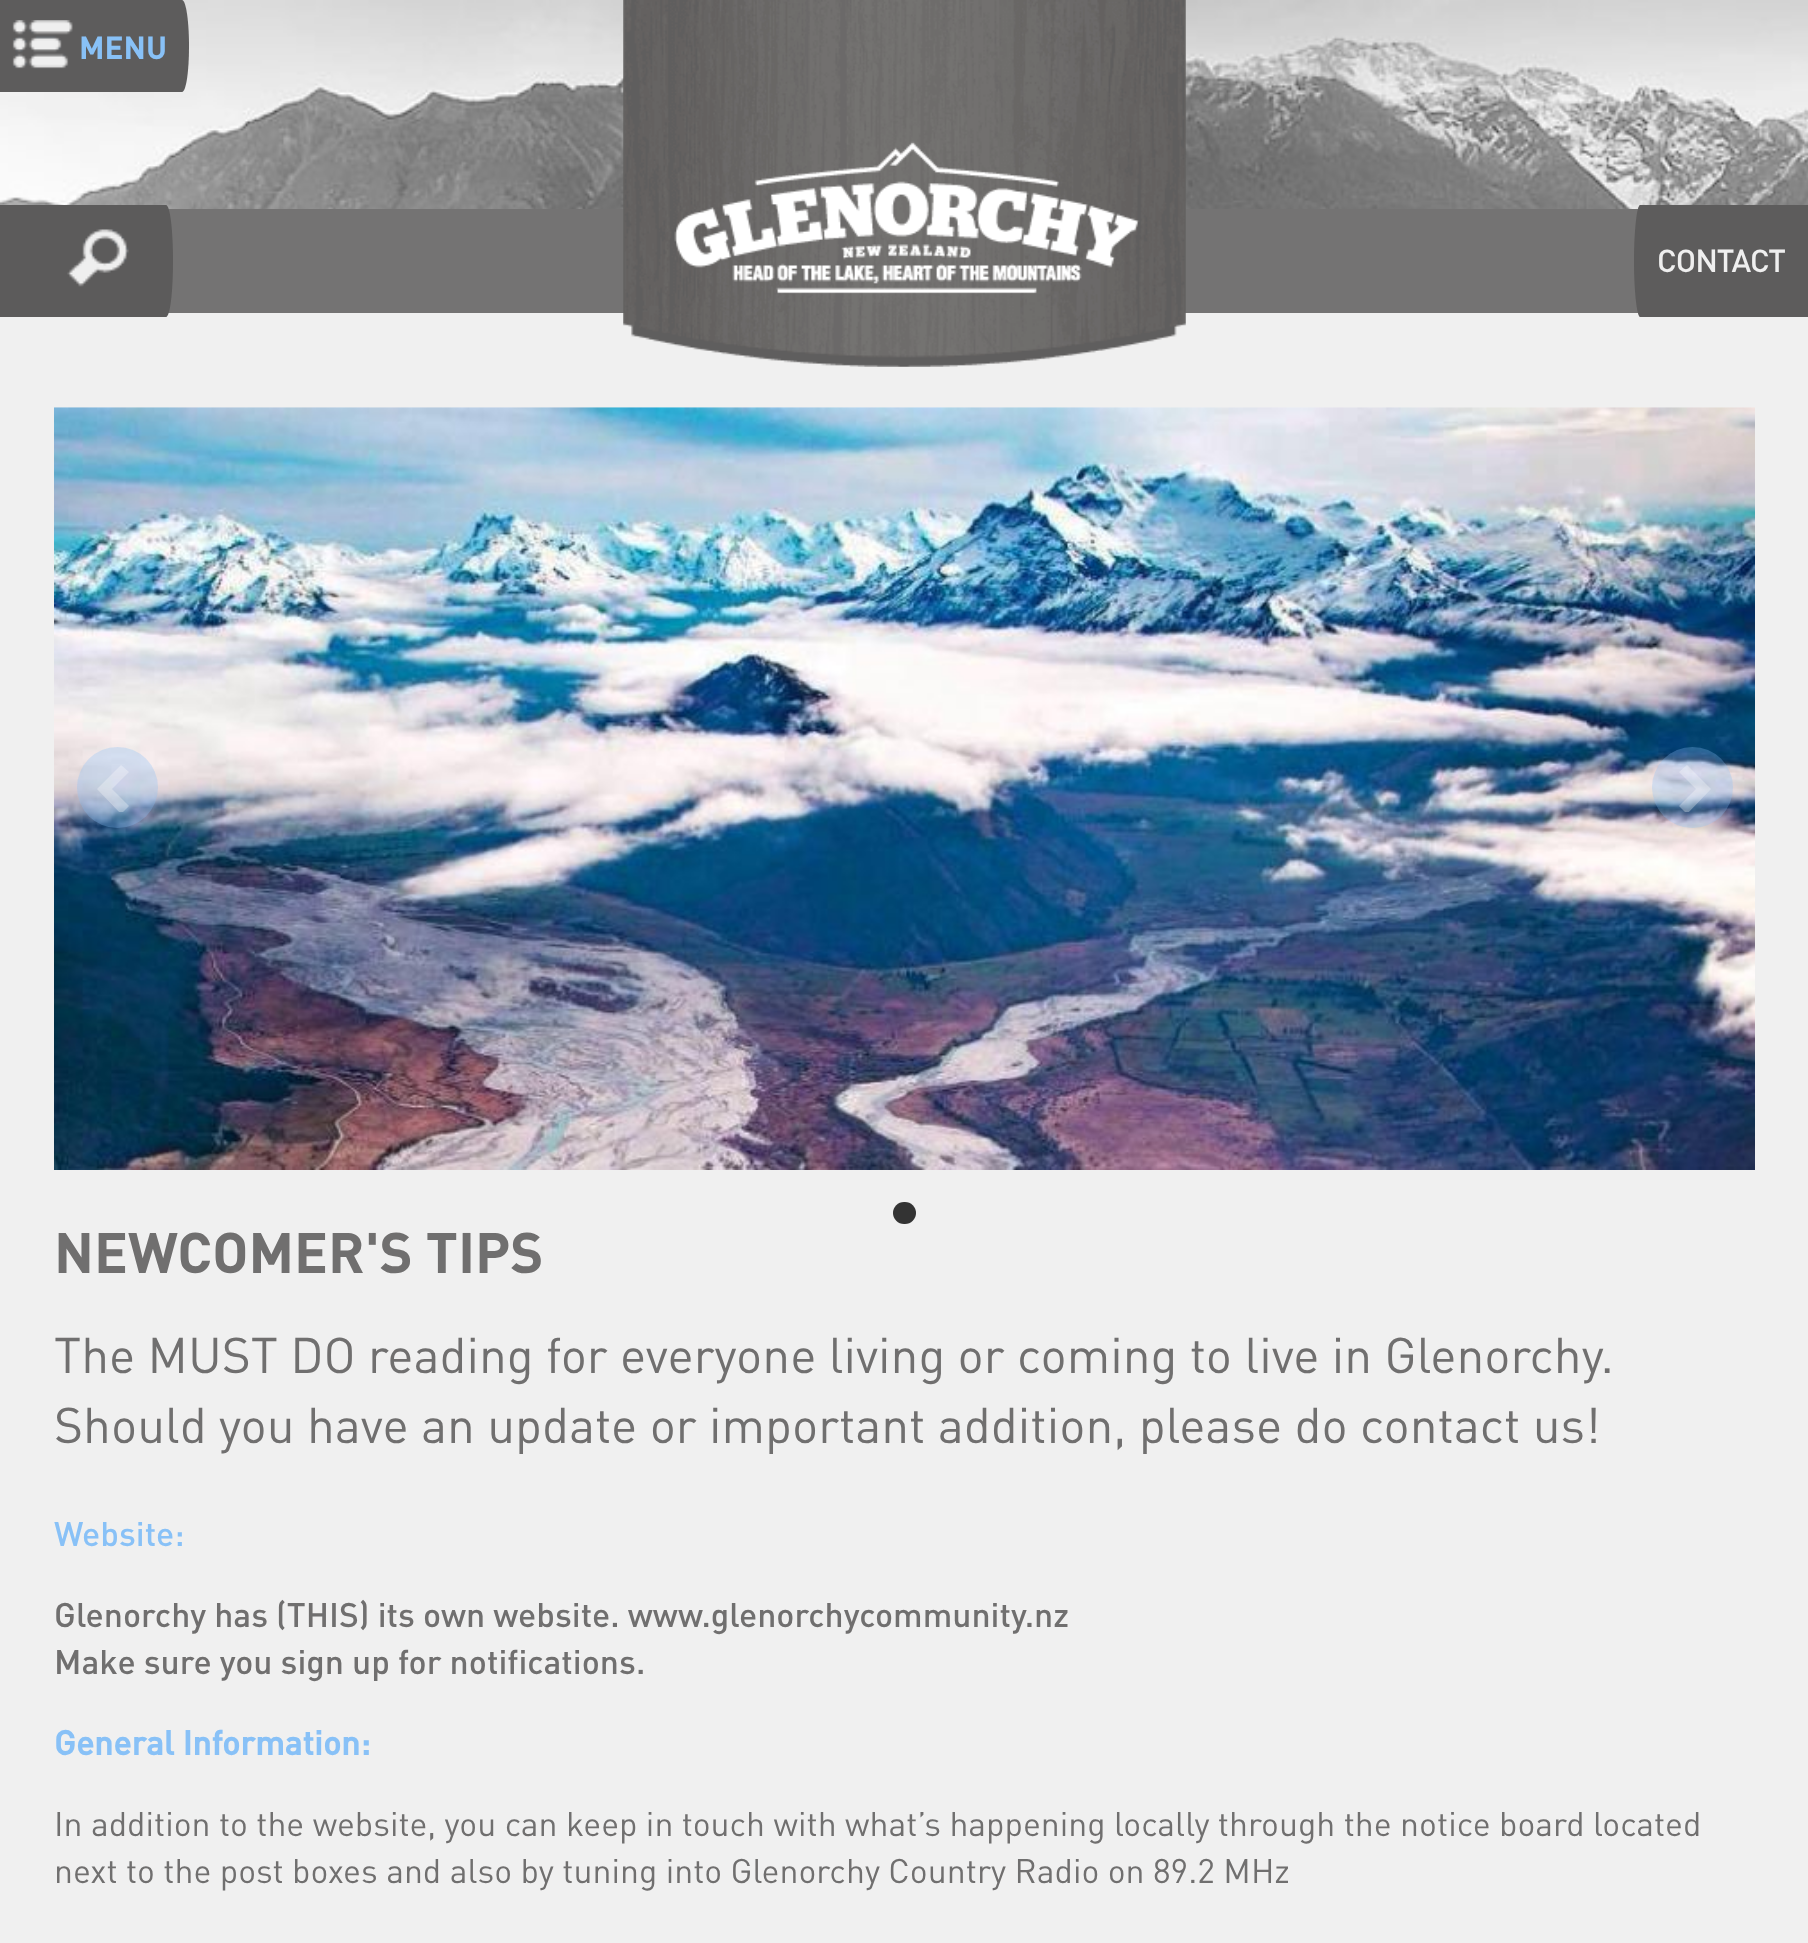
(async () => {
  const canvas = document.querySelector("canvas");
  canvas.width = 1808;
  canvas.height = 1943;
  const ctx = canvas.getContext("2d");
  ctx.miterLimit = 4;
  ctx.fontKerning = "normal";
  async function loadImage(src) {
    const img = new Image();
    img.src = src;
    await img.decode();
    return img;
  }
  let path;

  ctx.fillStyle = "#f0f0f0";
  ctx.fillRect(0, 0, 1808, 1943);
  ctx.drawImage(await loadImage("img/3.png"), 0, 0, 1808, 209);
  ctx.fillStyle = "#5d5c5c";
  path = new Path2D("M0 0H182C186 0 189 21 189 46C189 72 186 92 182 92H0Z");
  ctx.fill(path);
  ctx.drawImage(await loadImage("img/1.png"), 12, 20, 61, 49);
  ctx.fillStyle = "#747373";
  ctx.fillRect(168, 209, 458, 104);
  ctx.fillRect(1184, 209, 454, 104);
  ctx.drawImage(await loadImage("img/2.png"), 623, 0, 563, 367);
  ctx.fillStyle = "#5c5b5b";
  path = new Path2D("M0 205H166C170 205 173 230 173 261C173 292 170 317 166 317H0Z");
  ctx.fill(path);
  ctx.drawImage(await loadImage("img/4.png"), 67, 229, 62, 58);
  ctx.fillStyle = "#5d5c5c";
  path = new Path2D("M1640 205H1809V317H1640C1637 317 1634 292 1634 261C1634 230 1637 205 1640 205Z");
  ctx.fill(path);
  ctx.drawImage(await loadImage("img/5.png"), 54, 407, 1701, 763);
  ctx.fillStyle = "rgba(136, 193, 247, 0.3)";
  ctx.beginPath();
  ctx.arc(117.5, 787.5, 40.5, 0, Math.PI * 2);
  ctx.fill();
  ctx.save();
  ctx.beginPath();
  ctx.rect(92, 765, 50, 47);
  ctx.clip();
  ctx.fillStyle = "rgba(255, 255, 255, 0.3)";
  path = new Path2D("M97 789L121 814L129 806L112 789L129 772L121 765Z");
  ctx.fill(path);
  ctx.restore();
  ctx.beginPath();
  ctx.arc(1692.5, 787.5, 40.5, 0, Math.PI * 2);
  ctx.fill();
  ctx.save();
  ctx.beginPath();
  ctx.rect(1667, 765, 50, 47);
  ctx.clip();
  ctx.fillStyle = "rgba(255, 255, 255, 0.3)";
  path = new Path2D("M1711 789L1687 765L1679 772L1696 789L1679 806L1687 814Z");
  ctx.fill(path);
  ctx.restore();
  ctx.fillStyle = "#333333";
  ctx.beginPath();
  ctx.roundRect(893, 1202, 23, 22, 11);
  ctx.fill();
  ctx.font = "bold 31.5px DIN";
  ctx.fillStyle = "#88c1f7";
  ctx.fillText("MENU", 79, 59);
  ctx.letterSpacing = "-1px";
  ctx.font = "500 31.5px DIN";
  ctx.fillStyle = "#efefef";
  ctx.fillText("CONTACT", 1657, 272);
  ctx.letterSpacing = "0px";
  ctx.font = "bold 56.25px DIN";
  ctx.fillStyle = "#706f6f";
  ctx.fillText("NEWCOMER'S TIPS", 54, 1273);
  ctx.font = "49.5px DIN";
  ctx.fillText("The MUST DO reading for everyone living or coming to live in Glenorchy.", 54, 1373);
  ctx.fillText("Should you have an update or important addition, please do contact us!", 54, 1443);
  ctx.font = "500 33.75px DIN";
  ctx.fillStyle = "#88c1f7";
  ctx.fillText("Website:", 54, 1546);
  ctx.fillStyle = "#706f6f";
  ctx.fillText("Glenorchy has (THIS) its own website. www.glenorchycommunity.nz", 54, 1627);
  ctx.fillText("Make sure you sign up for notifications.", 54, 1674);
  ctx.font = "bold 33.75px 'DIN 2'";
  ctx.fillStyle = "#88c1f7";
  ctx.fillText("General Information:", 54, 1755);
  ctx.font = "33.75px DIN";
  ctx.fillStyle = "#706f6f";
  ctx.fillText("In addition to the website, you can keep in touch with what’s happening locally through the notice board located", 54, 1836);
  ctx.fillText("next to the post boxes and also by tuning into Glenorchy Country Radio on 89.2 MHz", 54, 1883);
})();
